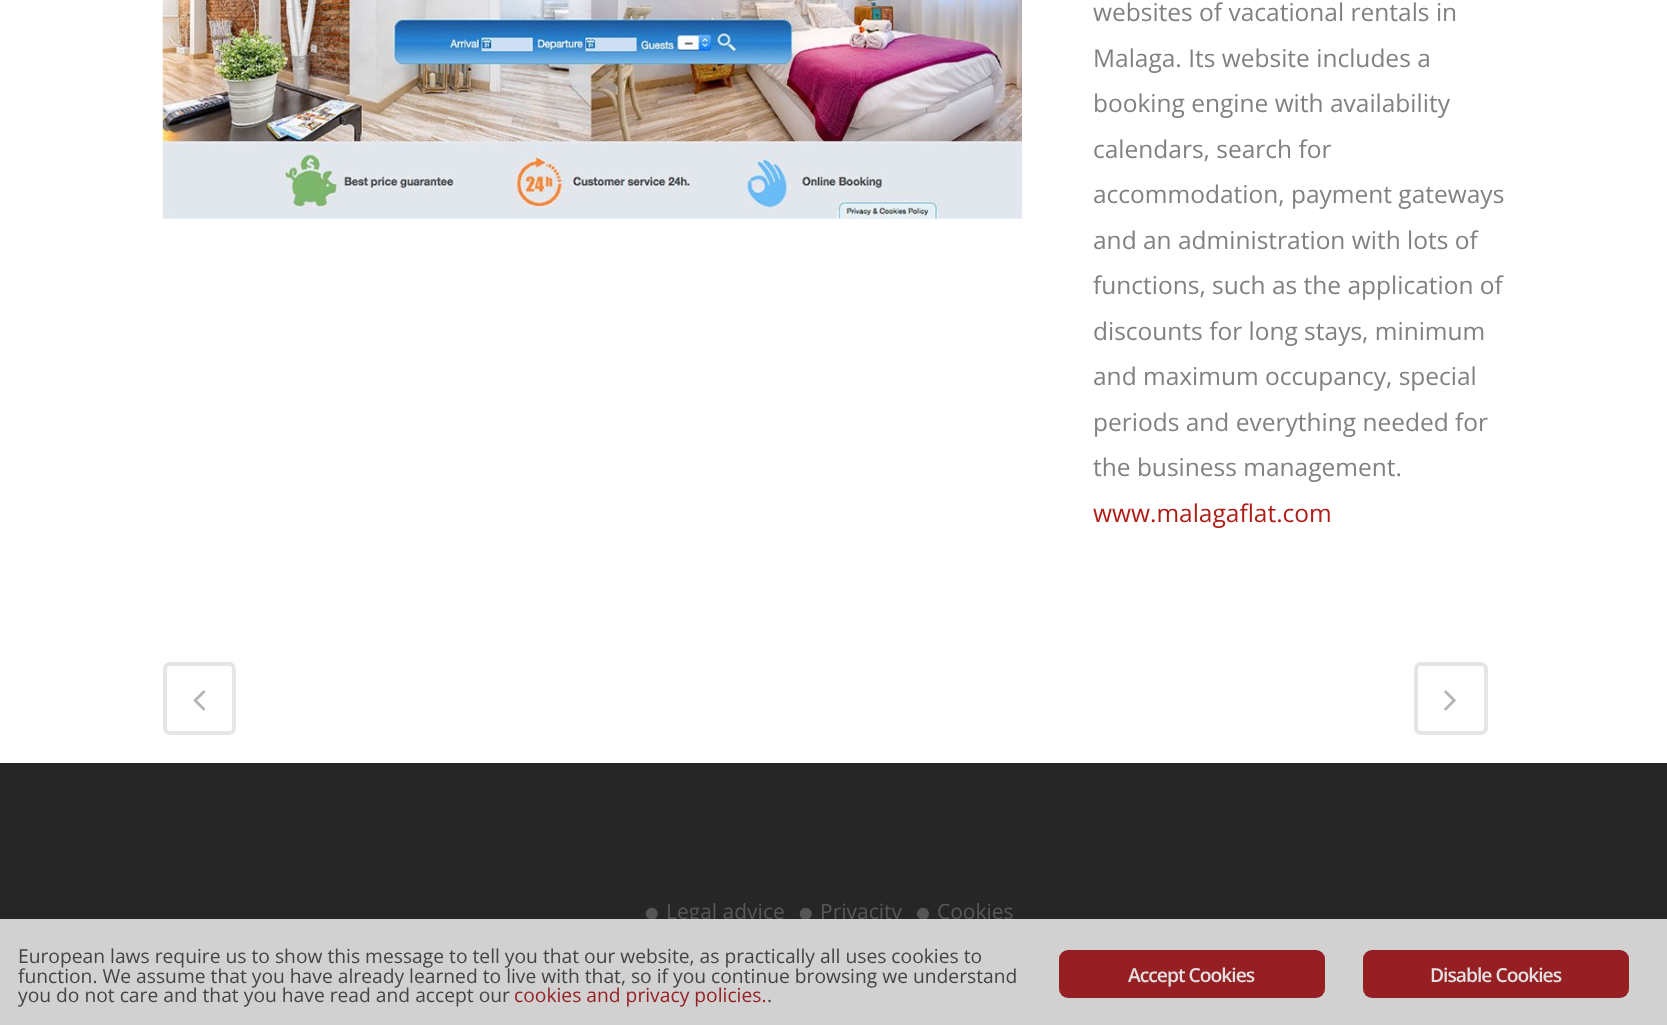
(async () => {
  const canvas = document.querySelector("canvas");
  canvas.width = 1667;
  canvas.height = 1025;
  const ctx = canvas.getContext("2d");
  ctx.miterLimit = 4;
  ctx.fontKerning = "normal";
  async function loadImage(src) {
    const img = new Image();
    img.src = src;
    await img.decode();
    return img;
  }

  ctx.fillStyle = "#ffffff";
  ctx.fillRect(0, 0, 1667, 1025);
  ctx.drawImage(await loadImage("img/1.png"), 162, 0, 860, 219);
  ctx.beginPath();
  ctx.roundRect(165, 664, 69, 69, 5);
  ctx.strokeStyle = "#e5e5e5";
  ctx.lineWidth = 4;
  ctx.stroke();
  ctx.drawImage(await loadImage("img/2.png"), 193, 690, 13, 21);
  ctx.beginPath();
  ctx.roundRect(1416, 664, 70, 69, 5);
  ctx.stroke();
  ctx.drawImage(await loadImage("img/3.png"), 1444, 690, 12, 21);
  ctx.fillStyle = "#262626";
  ctx.fillRect(0, 763, 1667, 156);
  ctx.drawImage(await loadImage("img/4.png"), 645, 907, 13, 12);
  ctx.drawImage(await loadImage("img/4.png"), 799, 907, 13, 12);
  ctx.drawImage(await loadImage("img/5.png"), 917, 907, 12, 12);
  ctx.font = "24.5px Open Sans";
  ctx.fillStyle = "#818181";
  for (const [text, x, y] of [
    ["websites of vacational rentals in", 1093, 21],
    ["Malaga. Its website includes a", 1093, 67],
    ["booking engine with availability", 1093, 112],
    ["calendars, search for", 1093, 158],
    ["accommodation, payment gateways", 1093, 203],
    ["and an administration with lots of", 1093, 249],
    ["functions, such as the application of", 1093, 294],
    ["discounts for long stays, minimum", 1093, 340],
    ["and maximum occupancy, special", 1093, 385],
    ["periods and everything needed for", 1093, 431],
    ["the business management.", 1093, 476],
  ]) {
    ctx.fillText(text, x, y);
  }
  ctx.fillStyle = "#b01d16";
  ctx.fillText("www.malagaflat.com", 1093, 522);
  ctx.font = "21px Open Sans";
  ctx.fillStyle = "#585858";
  for (const [text, x, y] of [
    ["Legal advice", 666, 919],
    ["Privacity", 820, 919],
    ["Cookies", 937, 919],
  ]) {
    ctx.fillText(text, x, y);
  }
  ctx.fillStyle = "#d1d1d1";
  ctx.fillRect(0, 919, 1667, 106);
  ctx.font = "19.25px Open Sans";
  ctx.fillStyle = "#444444";
  for (const [text, x, y] of [
    ["European laws require us to show this message to tell you that our website, as practically all uses cookies to", 18, 963],
    ["function. We assume that you have already learned to live with that, so if you continue browsing we understand", 18, 983],
    ["you do not care and that you have read and accept our", 18, 1002],
  ]) {
    ctx.fillText(text, x, y);
  }
  ctx.fillStyle = "#961f24";
  ctx.fillText("cookies and privacy policies.", 514, 1002);
  ctx.fillStyle = "#444444";
  ctx.fillText(".", 767, 1002);
  ctx.fillStyle = "#961f24";
  ctx.beginPath();
  ctx.roundRect(1059, 950, 266, 48, 9);
  ctx.fill();
  ctx.letterSpacing = "-1px";
  ctx.font = "600 19.25px Open Sans";
  ctx.fillStyle = "#e1e1e1";
  ctx.fillText("Accept Cookies", 1128, 982);
  ctx.fillStyle = "#961f24";
  ctx.beginPath();
  ctx.roundRect(1363, 950, 266, 48, 9);
  ctx.fill();
  ctx.fillStyle = "#e1e1e1";
  ctx.fillText("Disable Cookies", 1430, 982);
})();
